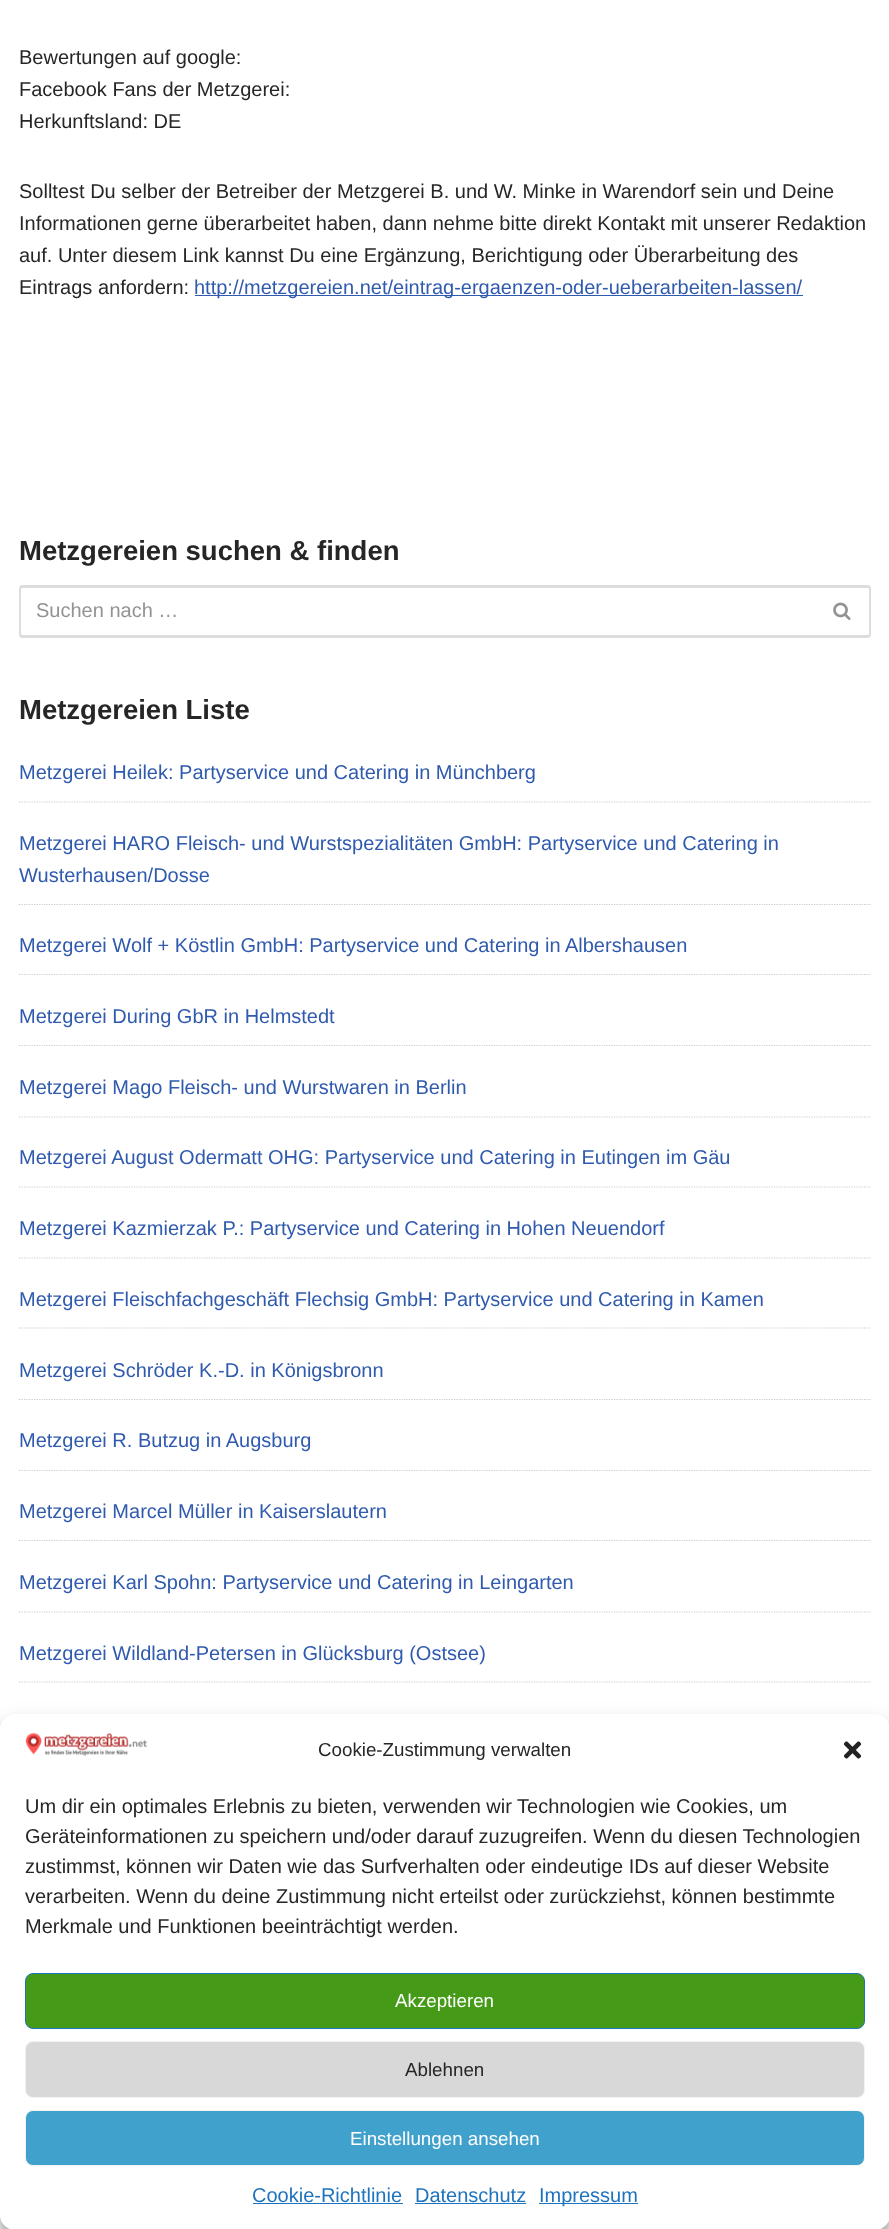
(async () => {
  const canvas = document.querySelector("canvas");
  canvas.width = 889;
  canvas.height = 2229;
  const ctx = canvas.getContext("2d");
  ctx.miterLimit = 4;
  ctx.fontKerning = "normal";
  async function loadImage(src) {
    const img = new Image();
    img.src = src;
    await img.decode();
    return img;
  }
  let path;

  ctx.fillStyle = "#ffffff";
  ctx.fillRect(0, 0, 889, 2229);
  ctx.fillStyle = "#2f5aae";
  ctx.fillRect(195, 295, 608, 1);
  ctx.fillStyle = "#dddddd";
  path = new Path2D("M22 585H815V638H22C20 638 19 636 19 634V589C19 587 20 585 22 585ZM22 588H815V635H22C22 635 21 634 21 634V589C21 588 22 588 22 588Z");
  ctx.fill(path, "evenodd");
  path = new Path2D("M815 585H868C870 585 871 587 871 589V634C871 636 870 638 868 638H815ZM815 588H868C868 588 869 588 869 589V634C869 634 868 635 868 635H815Z");
  ctx.fill(path, "evenodd");
  ctx.drawImage(await loadImage("img/1.png"), 833, 602, 18, 18);
  path = new Path2D("M19 802H871");
  ctx.strokeStyle = "#cccccc";
  ctx.lineWidth = 1.2;
  ctx.setLineDash([1.25, 1.25]);
  ctx.stroke(path);
  path = new Path2D("M19 904.5H871");
  ctx.stroke(path);
  path = new Path2D("M19 974.5H871");
  ctx.stroke(path);
  path = new Path2D("M19 1045.5H871");
  ctx.stroke(path);
  path = new Path2D("M19 1117H871");
  ctx.stroke(path);
  path = new Path2D("M19 1187H871");
  ctx.stroke(path);
  path = new Path2D("M19 1258H871");
  ctx.stroke(path);
  path = new Path2D("M19 1328H871");
  ctx.stroke(path);
  path = new Path2D("M19 1399.5H871");
  ctx.stroke(path);
  path = new Path2D("M19 1470.5H871");
  ctx.stroke(path);
  path = new Path2D("M19 1540.5H871");
  ctx.stroke(path);
  path = new Path2D("M19 1612H871");
  ctx.stroke(path);
  path = new Path2D("M19 1682H871");
  ctx.stroke(path);
  ctx.fillStyle = "rgba(0, 0, 0, 0.23)";
  ctx.filter = "blur(4px)";
  ctx.beginPath();
  ctx.roundRect(0, 1721, 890, 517, 15);
  ctx.fill();
  ctx.filter = "none";
  ctx.fillStyle = "rgba(0, 0, 0, 0.19)";
  ctx.filter = "blur(12.5px)";
  ctx.beginPath();
  ctx.roundRect(0, 1726, 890, 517, 15);
  ctx.fill();
  ctx.filter = "none";
  ctx.fillStyle = "#ffffff";
  ctx.beginPath();
  ctx.roundRect(0, 1714, 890, 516, 15);
  ctx.fill();
  ctx.drawImage(await loadImage("img/2.png"), 25, 1733, 123, 24);
  ctx.drawImage(await loadImage("img/3.png"), 843, 1741, 19, 18);
  ctx.fillStyle = "#459b17";
  ctx.beginPath();
  ctx.roundRect(25.5, 1973.5, 839, 55, 7.5);
  ctx.fill();
  ctx.strokeStyle = "#1e73be";
  ctx.lineWidth = 1;
  ctx.setLineDash([]);
  ctx.stroke();
  ctx.fillStyle = "#d8d8d8";
  ctx.beginPath();
  ctx.roundRect(25.5, 2041.5, 839, 56, 7.5);
  ctx.fill();
  ctx.strokeStyle = "#f2f2f2";
  ctx.stroke();
  ctx.fillStyle = "#3fa1cc";
  ctx.beginPath();
  ctx.roundRect(25.5, 2110.5, 839, 55, 7.5);
  ctx.fill();
  ctx.stroke();
  for (const [x, y, w, h, color] of [
    [253, 2203, 150, 1, "#1e73be"],
    [415, 2203, 111, 1, "#1e73be"],
    [539, 2203, 99, 1, "#1e73be"],
  ]) {
    ctx.fillStyle = color;
    ctx.fillRect(x, y, w, h);
  }
  ctx.font = "20px Liberation Sans";
  ctx.fillStyle = "#272626";
  for (const [text, x, y] of [
    ["Bewertungen auf google:", 19, 64],
    ["Facebook Fans der Metzgerei:", 19, 96],
    ["Herkunftsland: DE", 19, 128],
    ["Solltest Du selber der Betreiber der Metzgerei B. und W. Minke in Warendorf sein und Deine", 19, 198],
    ["Informationen gerne überarbeitet haben, dann nehme bitte direkt Kontakt mit unserer Redaktion", 19, 230],
    ["auf. Unter diesem Link kannst Du eine Ergänzung, Berichtigung oder Überarbeitung des", 19, 262],
    ["Eintrags anfordern:", 19, 294],
  ]) {
    ctx.fillText(text, x, y);
  }
  ctx.fillStyle = "#2f5aae";
  ctx.fillText("http://metzgereien.net/eintrag-ergaenzen-oder-ueberarbeiten-lassen/", 194, 294);
  ctx.font = "bold 27.5px Liberation Sans";
  ctx.fillStyle = "#272626";
  ctx.fillText("Metzgereien suchen & finden", 19, 560);
  ctx.font = "20px Liberation Sans";
  ctx.fillStyle = "#939393";
  ctx.fillText("Suchen nach …", 36, 617);
  ctx.font = "bold 27.5px Liberation Sans";
  ctx.fillStyle = "#272626";
  ctx.fillText("Metzgereien Liste", 19, 719);
  ctx.font = "20px Liberation Sans";
  ctx.fillStyle = "#2f5aae";
  for (const [text, x, y] of [
    ["Metzgerei Heilek: Partyservice und Catering in Münchberg", 19, 779],
    ["Metzgerei HARO Fleisch- und Wurstspezialitäten GmbH: Partyservice und Catering in", 19, 850],
    ["Wusterhausen/Dosse", 19, 882],
    ["Metzgerei Wolf + Köstlin GmbH: Partyservice und Catering in Albershausen", 19, 952],
    ["Metzgerei During GbR in Helmstedt", 19, 1023],
    ["Metzgerei Mago Fleisch- und Wurstwaren in Berlin", 19, 1094],
    ["Metzgerei August Odermatt OHG: Partyservice und Catering in Eutingen im Gäu", 19, 1164],
    ["Metzgerei Kazmierzak P.: Partyservice und Catering in Hohen Neuendorf", 19, 1235],
    ["Metzgerei Fleischfachgeschäft Flechsig GmbH: Partyservice und Catering in Kamen", 19, 1306],
    ["Metzgerei Schröder K.-D. in Königsbronn", 19, 1377],
    ["Metzgerei R. Butzug in Augsburg", 19, 1447],
    ["Metzgerei Marcel Müller in Kaiserslautern", 19, 1518],
    ["Metzgerei Karl Spohn: Partyservice und Catering in Leingarten", 19, 1589],
    ["Metzgerei Wildland-Petersen in Glücksburg (Ostsee)", 19, 1660],
  ]) {
    ctx.fillText(text, x, y);
  }
  ctx.font = "18.75px Liberation Sans";
  ctx.fillStyle = "#272626";
  ctx.fillText("Cookie-Zustimmung verwalten", 318, 1756);
  ctx.font = "20px Liberation Sans";
  for (const [text, x, y] of [
    ["Um dir ein optimales Erlebnis zu bieten, verwenden wir Technologien wie Cookies, um", 25, 1813],
    ["Geräteinformationen zu speichern und/oder darauf zuzugreifen. Wenn du diesen Technologien", 25, 1843],
    ["zustimmst, können wir Daten wie das Surfverhalten oder eindeutige IDs auf dieser Website", 25, 1873],
    ["verarbeiten. Wenn du deine Zustimmung nicht erteilst oder zurückziehst, können bestimmte", 25, 1903],
    ["Merkmale und Funktionen beeinträchtigt werden.", 25, 1933],
  ]) {
    ctx.fillText(text, x, y);
  }
  ctx.font = "18.75px Liberation Sans";
  ctx.fillStyle = "#ffffff";
  ctx.fillText("Akzeptieren", 395, 2007);
  ctx.fillStyle = "#272626";
  ctx.fillText("Ablehnen", 405, 2076);
  ctx.fillStyle = "#ffffff";
  ctx.fillText("Einstellungen ansehen", 350, 2145);
  ctx.font = "20px Liberation Sans";
  ctx.fillStyle = "#1e73be";
  for (const [text, x, y] of [
    ["Cookie-Richtlinie", 252, 2202],
    ["Datenschutz", 415, 2202],
    ["Impressum", 539, 2202],
  ]) {
    ctx.fillText(text, x, y);
  }
})();
